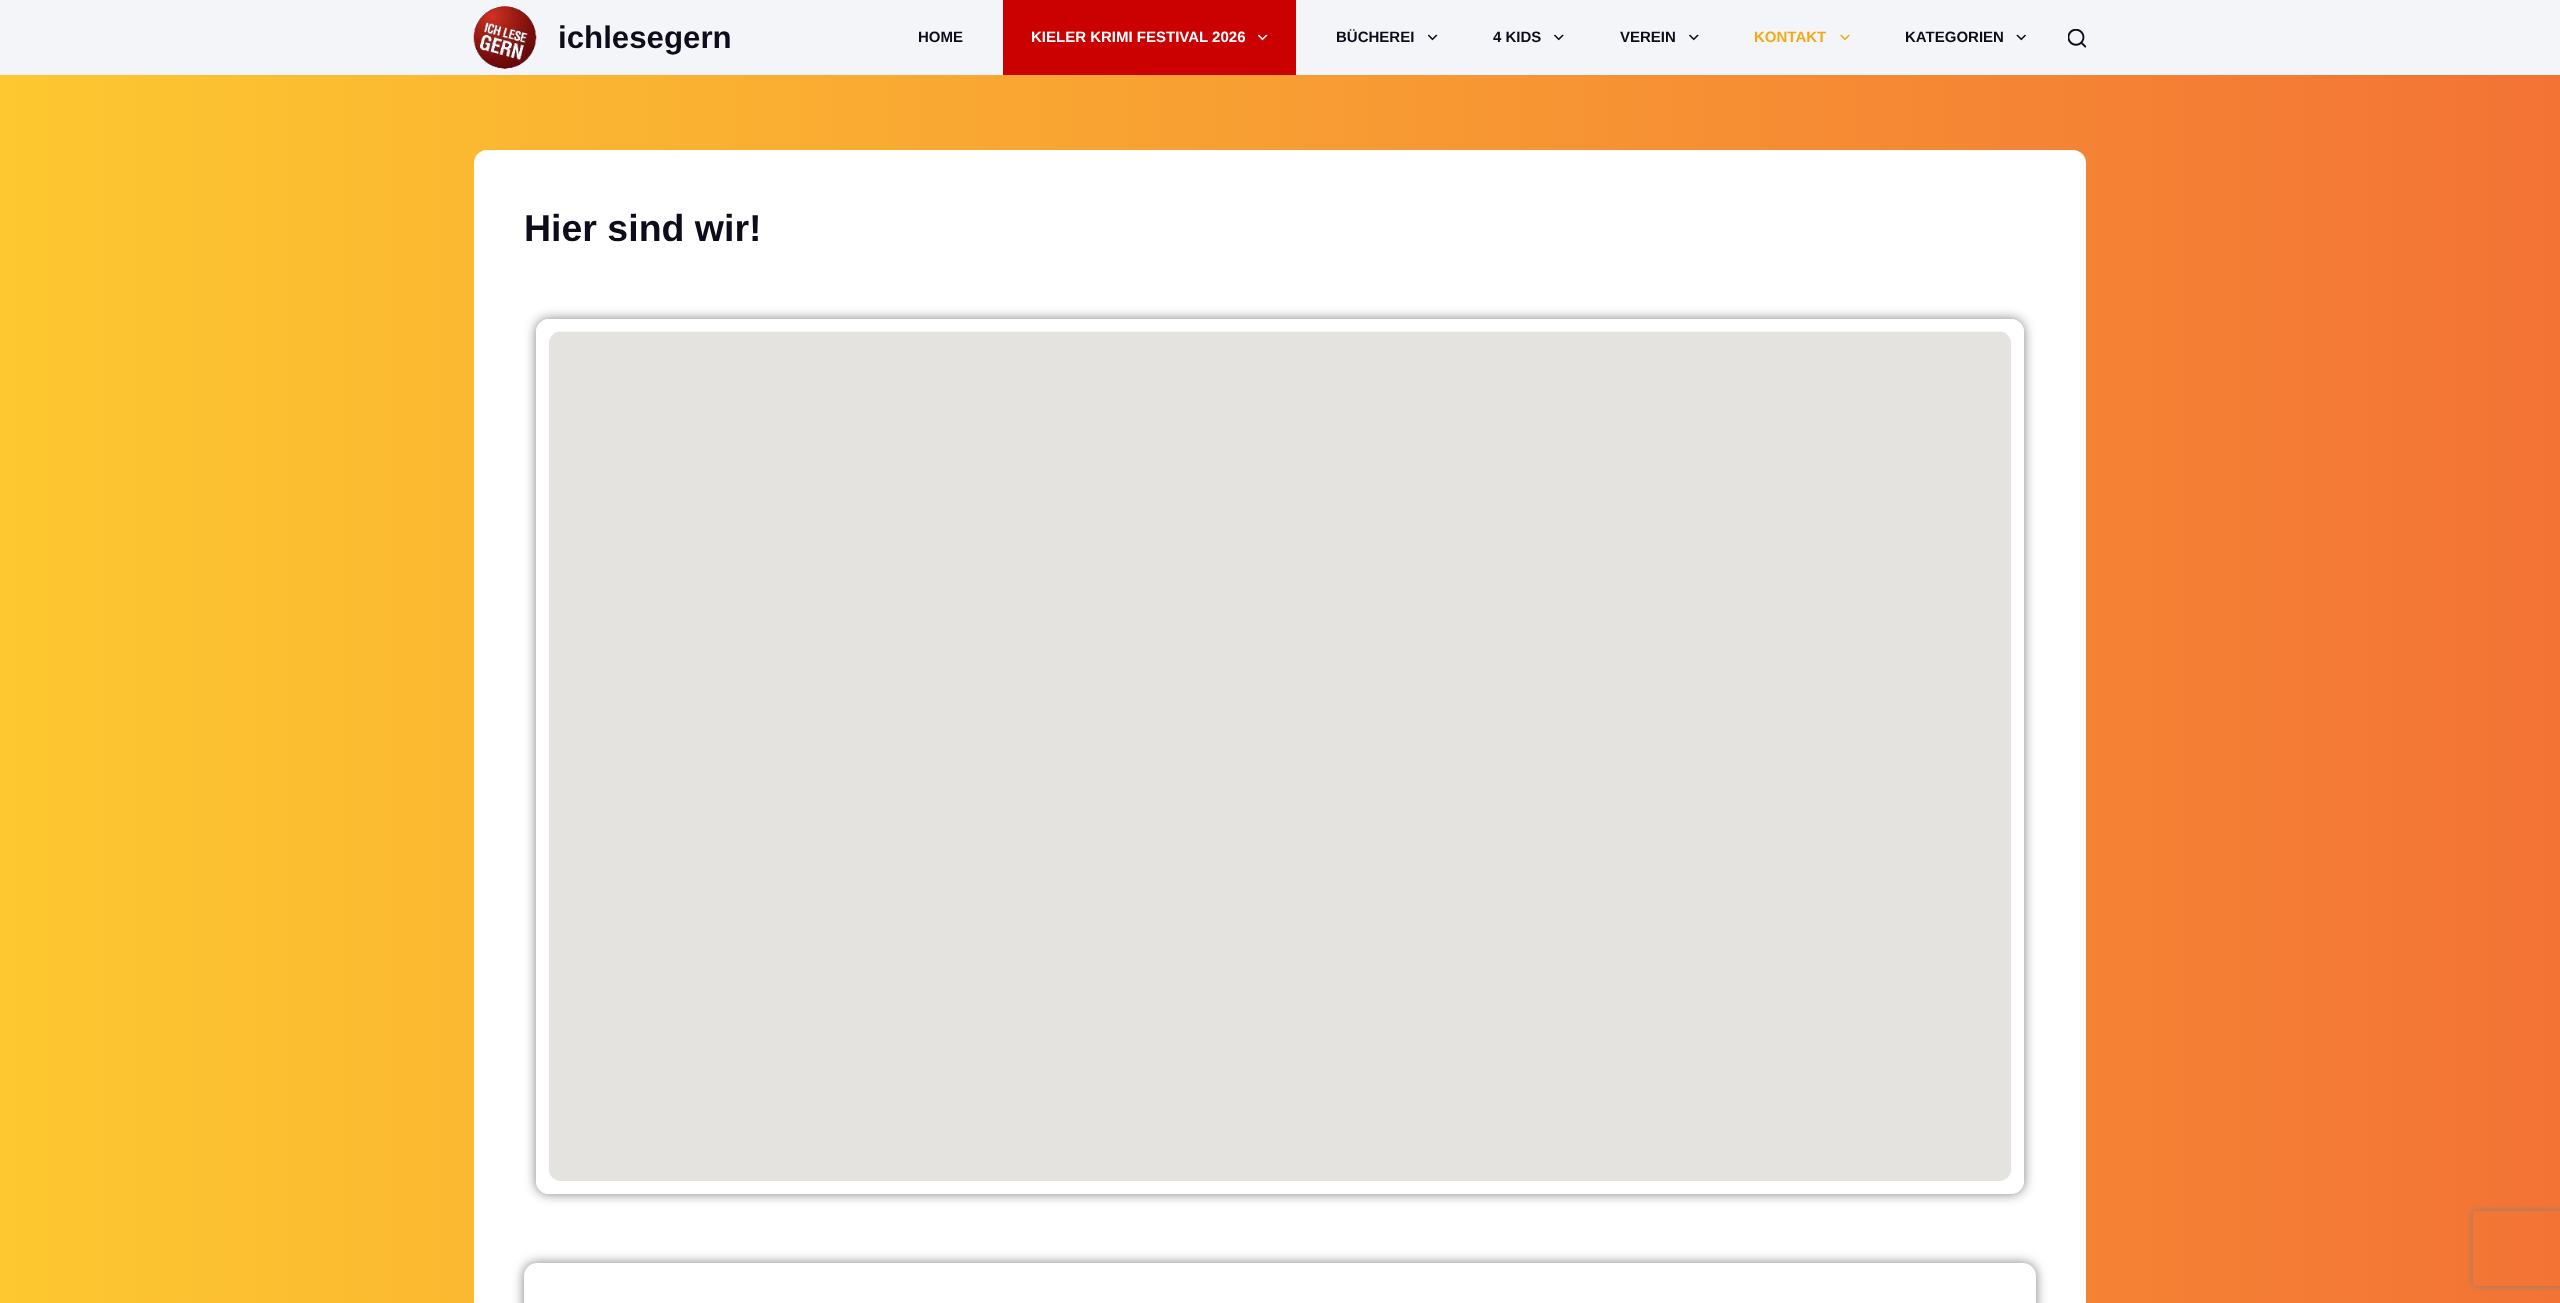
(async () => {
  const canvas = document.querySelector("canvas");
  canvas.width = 2560;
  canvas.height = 1303;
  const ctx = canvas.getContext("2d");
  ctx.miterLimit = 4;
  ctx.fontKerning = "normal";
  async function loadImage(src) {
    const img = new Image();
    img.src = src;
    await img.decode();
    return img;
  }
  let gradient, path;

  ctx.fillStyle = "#ffffff";
  ctx.fillRect(0, 0, 2560, 1303);
  gradient = ctx.createLinearGradient(0, 1076, 2560, 1076);
  gradient.addColorStop(0, "#fdc830");
  gradient.addColorStop(1, "#f37335");
  ctx.fillStyle = gradient;
  ctx.fillRect(0, 75, 2560, 1228);
  ctx.fillStyle = "#f4f5f8";
  ctx.fillRect(0, 0, 2560, 75);
  ctx.drawImage(await loadImage("img/1.png"), 473, 6, 64, 63);
  ctx.fillStyle = "#cb0000";
  ctx.fillRect(1003, 0, 293, 75);
  ctx.drawImage(await loadImage("img/2.png"), 1258, 34, 10, 7);
  ctx.drawImage(await loadImage("img/3.png"), 1428, 34, 10, 7);
  ctx.drawImage(await loadImage("img/4.png"), 1554, 34, 10, 7);
  ctx.drawImage(await loadImage("img/4.png"), 1689, 34, 10, 7);
  ctx.drawImage(await loadImage("img/5.png"), 1840, 34, 10, 7);
  ctx.drawImage(await loadImage("img/6.png"), 2016, 34, 10, 7);
  ctx.drawImage(await loadImage("img/7.png"), 2068, 29, 18, 19);
  ctx.fillStyle = "#ffffff";
  ctx.beginPath();
  ctx.roundRect(474, 150, 1612, 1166, 13);
  ctx.fill();
  ctx.save();
  path = new Path2D("M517 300H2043V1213H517ZM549 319H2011C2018 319 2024 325 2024 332V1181C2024 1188 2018 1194 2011 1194H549C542 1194 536 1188 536 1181V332C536 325 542 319 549 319Z");
  ctx.clip(path, "evenodd");
  ctx.fillStyle = "rgba(0, 0, 0, 0.5)";
  ctx.filter = "blur(6px)";
  ctx.beginPath();
  ctx.roundRect(536, 319, 1488, 875, 13);
  ctx.fill();
  ctx.filter = "none";
  ctx.restore();
  ctx.beginPath();
  ctx.roundRect(542.5, 325.5, 1475, 862, 6.5);
  ctx.strokeStyle = "#ffffff";
  ctx.lineWidth = 13;
  ctx.stroke();
  ctx.drawImage(await loadImage("img/8.png"), 549, 331, 1462, 850);
  ctx.save();
  path = new Path2D("M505 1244H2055V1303H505ZM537 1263H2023C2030 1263 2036 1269 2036 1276V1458C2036 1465 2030 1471 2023 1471H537C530 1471 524 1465 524 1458V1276C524 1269 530 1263 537 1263Z");
  ctx.clip(path, "evenodd");
  ctx.fillStyle = "rgba(0, 0, 0, 0.5)";
  ctx.filter = "blur(6px)";
  ctx.beginPath();
  ctx.roundRect(524, 1263, 1512, 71, 13);
  ctx.fill();
  ctx.filter = "none";
  ctx.restore();
  ctx.save();
  path = new Path2D("M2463 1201H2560V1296H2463ZM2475.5 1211H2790.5C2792 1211 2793 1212 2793 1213.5V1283.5C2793 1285 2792 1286 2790.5 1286H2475.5C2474 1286 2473 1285 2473 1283.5V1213.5C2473 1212 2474 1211 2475.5 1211Z");
  ctx.clip(path, "evenodd");
  ctx.fillStyle = "#808080";
  ctx.filter = "blur(3px)";
  ctx.beginPath();
  ctx.roundRect(2473, 1211, 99, 75, 2.5);
  ctx.fill();
  ctx.filter = "none";
  ctx.restore();
  ctx.font = "bold 31.25px Liberation Sans";
  ctx.fillStyle = "#0e0c1b";
  ctx.fillText("ichlesegern", 558, 48);
  ctx.font = "bold 15px Liberation Sans";
  ctx.fillText("HOME", 918, 42);
  ctx.fillStyle = "#ffffff";
  ctx.fillText("KIELER KRIMI FESTIVAL 2026", 1031, 42);
  ctx.fillStyle = "#0e0c1b";
  for (const [text, x, y] of [
    ["BÜCHEREI", 1336, 42],
    ["4 KIDS", 1493, 42],
    ["VEREIN", 1620, 42],
  ]) {
    ctx.fillText(text, x, y);
  }
  ctx.fillStyle = "#f3a914";
  ctx.fillText("KONTAKT", 1754, 42);
  ctx.fillStyle = "#0e0c1b";
  ctx.fillText("KATEGORIEN", 1905, 42);
  ctx.font = "bold 37.5px Liberation Sans";
  ctx.fillText("Hier sind wir!", 524, 241);
})();
